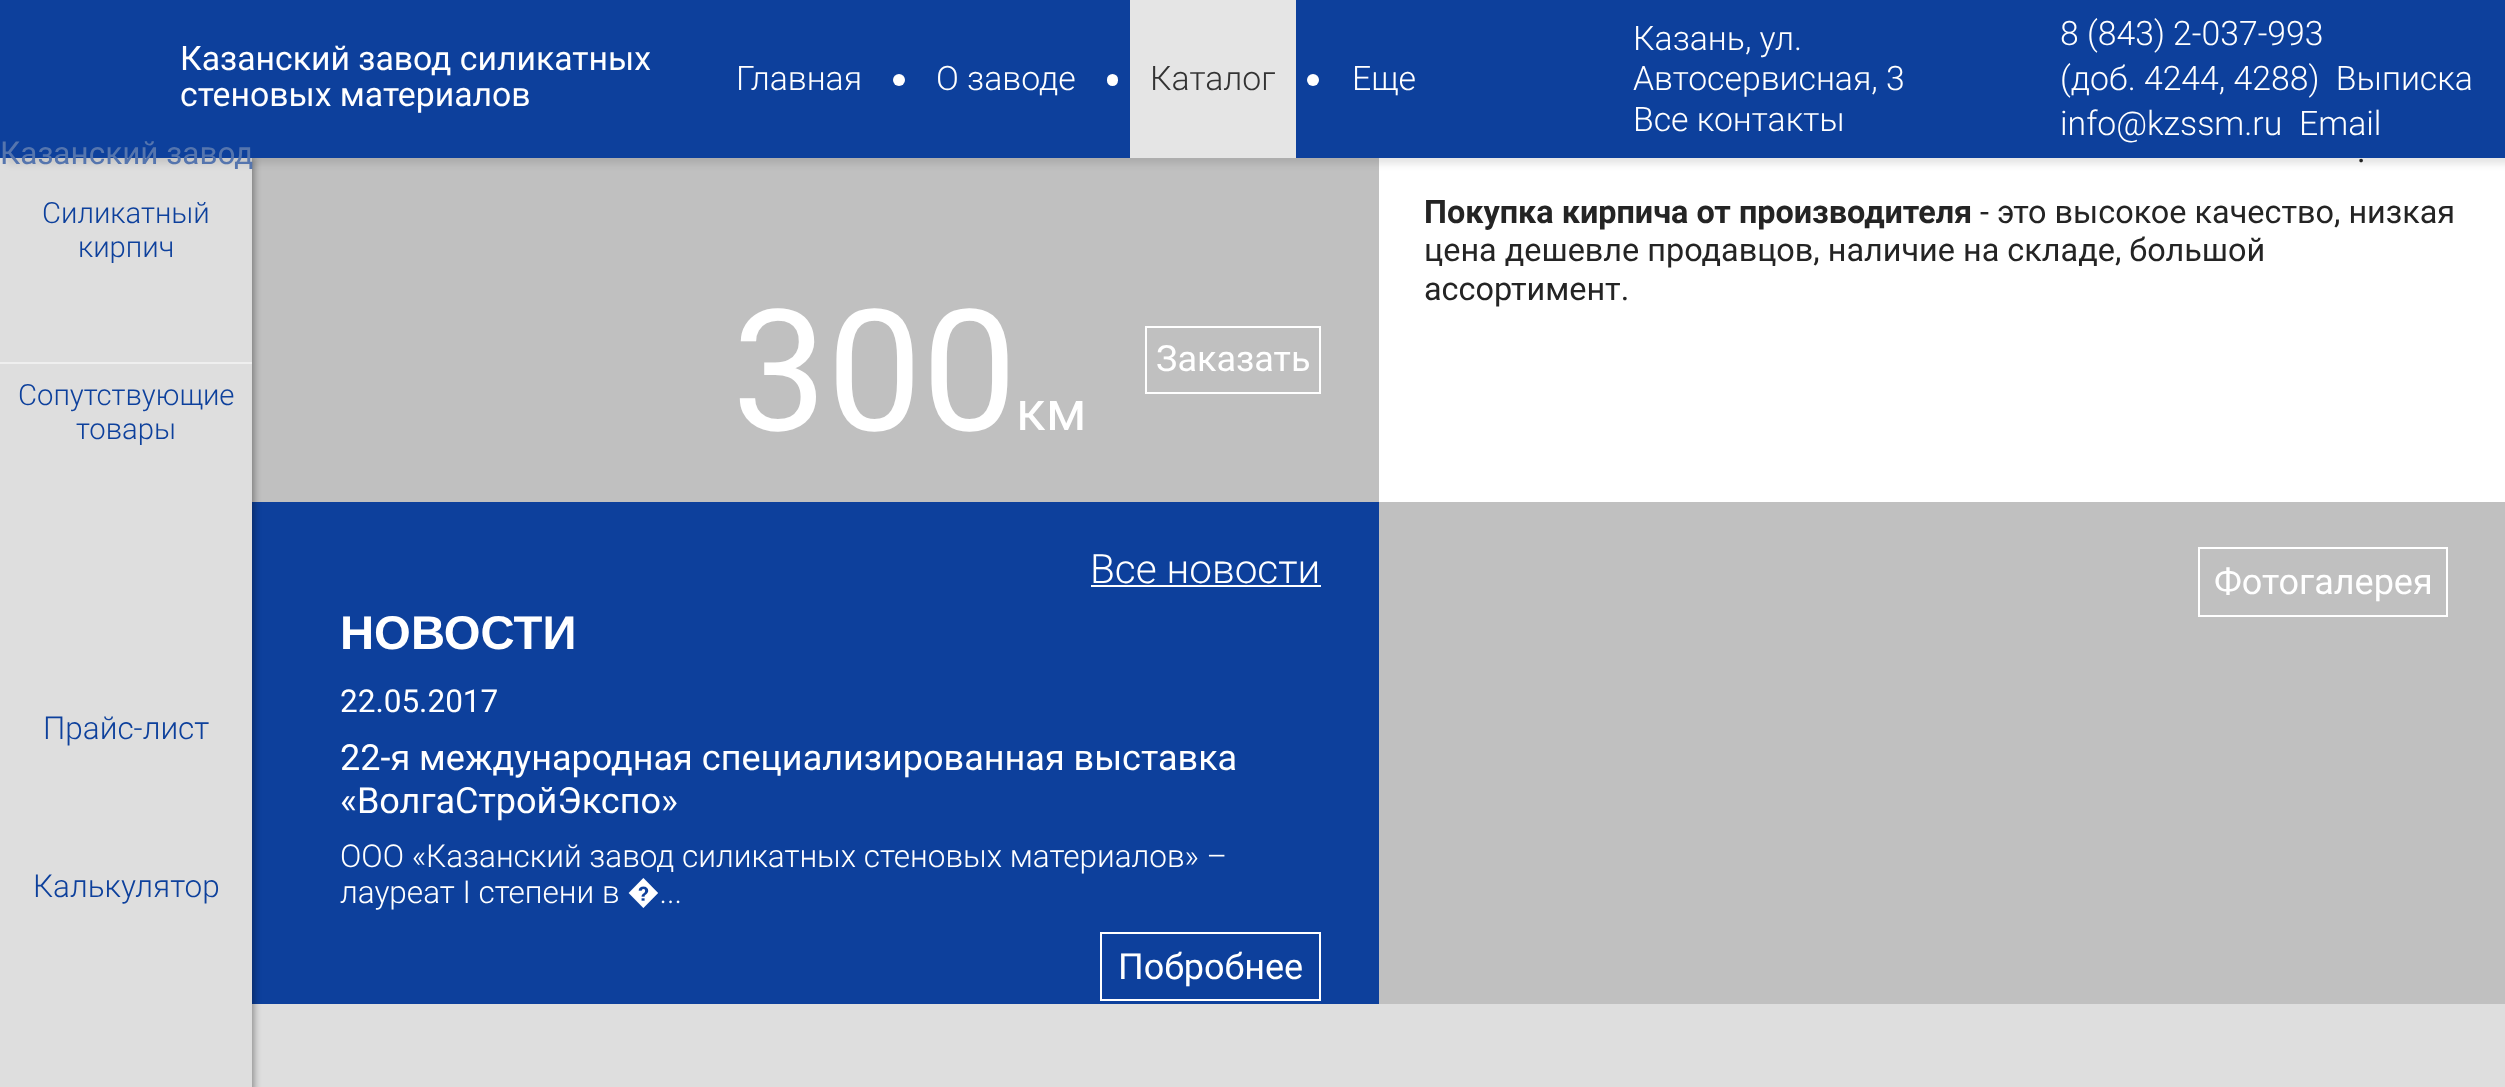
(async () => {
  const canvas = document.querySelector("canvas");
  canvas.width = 2505;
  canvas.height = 1087;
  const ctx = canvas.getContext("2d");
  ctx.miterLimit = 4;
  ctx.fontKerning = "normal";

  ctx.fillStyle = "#ffffff";
  ctx.fillRect(0, 0, 2505, 1087);
  for (const [x, y, w, h, color] of [
    [252, 158, 1127, 344, "#c0c0c0"],
    [252, 502, 1127, 502, "#0d409c"],
    [252, 1004, 2253, 83, "#dedede"],
  ]) {
    ctx.fillStyle = color;
    ctx.fillRect(x, y, w, h);
  }
  ctx.fillStyle = "rgba(0, 0, 0, 0.37)";
  ctx.filter = "blur(3.5px)";
  ctx.beginPath();
  ctx.rect(2, 158, 252, 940);
  ctx.fill();
  ctx.filter = "none";
  ctx.fillStyle = "#dedede";
  ctx.fillRect(0, 158, 252, 929);
  ctx.fillStyle = "rgba(0, 0, 0, 0.1)";
  ctx.filter = "blur(3.5px)";
  ctx.beginPath();
  ctx.rect(7, 7, 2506, 157);
  ctx.fill();
  ctx.filter = "none";
  ctx.fillStyle = "#0d409c";
  ctx.fillRect(0, 0, 2505, 158);
  ctx.fillStyle = "#ffffff";
  ctx.beginPath();
  ctx.arc(899, 80, 6, 0, Math.PI * 2);
  ctx.fill();
  ctx.fillStyle = "#e5e5e5";
  ctx.fillRect(1130, 0, 166, 158);
  ctx.fillStyle = "#ffffff";
  ctx.beginPath();
  ctx.roundRect(1107, 74, 11, 12, 5.5);
  ctx.fill();
  ctx.beginPath();
  ctx.arc(1313, 80, 6, 0, Math.PI * 2);
  ctx.fill();
  ctx.fillStyle = "#efefef";
  ctx.fillRect(0, 362, 252, 2);
  ctx.strokeStyle = "#ffffff";
  ctx.lineWidth = 2;
  ctx.strokeRect(1146, 327, 174, 66);
  ctx.fillStyle = "#ffffff";
  ctx.fillRect(1091, 585, 230, 2);
  ctx.strokeRect(1101, 933, 219, 67);
  ctx.fillStyle = "#c0c0c0";
  ctx.fillRect(1379, 502, 1126, 502);
  ctx.strokeRect(2199, 548, 248, 68);
  ctx.font = "33.75px Roboto";
  ctx.fillStyle = "#ffffff";
  ctx.fillText("Казанский завод силикатных", 180, 70);
  ctx.fillText("стеновых материалов", 180, 106);
  ctx.font = "31.5px Roboto";
  ctx.fillStyle = "#5575ae";
  ctx.fillText("Казанский завод", 0, 164);
  ctx.font = "300 33.75px Roboto";
  ctx.fillStyle = "#ffffff";
  ctx.fillText("Главная", 736, 90);
  ctx.fillText("О заводе", 936, 90);
  ctx.fillStyle = "#333333";
  ctx.fillText("Каталог", 1150, 90);
  ctx.fillStyle = "#ffffff";
  for (const [text, x, y] of [
    ["Еще", 1352, 90],
    ["Казань, ул.", 1633, 50],
    ["Автосервисная, 3", 1633, 90],
    ["Все контакты", 1633, 131],
    ["8 (843) 2-037-993", 2060, 45],
    ["(доб. 4244, 4288)  Выписка", 2060, 90],
    ["info@kzssm.ru", 2060, 135],
    ["Email", 2299, 135],
  ]) {
    ctx.fillText(text, x, y);
  }
  ctx.font = "300 29.25px Roboto";
  ctx.fillStyle = "#0d409c";
  for (const [text, x, y] of [
    ["Силикатный", 42, 223],
    ["кирпич", 78, 257],
    ["Сопутствующие", 18, 405],
    ["товары", 76, 439],
  ]) {
    ctx.fillText(text, x, y);
  }
  ctx.font = "300 31.5px Roboto";
  ctx.fillText("Прайс-лист", 43, 739);
  ctx.fillText("Калькулятор", 33, 897);
  ctx.font = "32.4px Roboto";
  ctx.fillStyle = "#242424";
  ctx.fillText(".", 2357, 162);
  ctx.font = "bold 32.4px Roboto";
  ctx.fillText("Покупка кирпича от производителя", 1424, 223);
  ctx.font = "32.4px Roboto";
  for (const [text, x, y] of [
    ["- это высокое качество, низкая", 1980, 223],
    ["цена дешевле продавцов, наличие на складе, большой", 1424, 261],
    ["ассортимент.", 1424, 300],
  ]) {
    ctx.fillText(text, x, y);
  }
  ctx.font = "169px Roboto";
  ctx.fillStyle = "#ffffff";
  ctx.fillText("300", 732, 430);
  ctx.font = "55px Roboto";
  ctx.fillText("км", 1016, 430);
  ctx.font = "36px Roboto";
  ctx.fillText("Заказать", 1156, 371);
  ctx.font = "300 40.5px Roboto";
  ctx.fillText("Все новости", 1090, 583);
  ctx.font = "bold 47.25px Liberation Sans";
  ctx.fillText("НОВОСТИ", 340, 649);
  ctx.font = "31.5px Roboto";
  ctx.fillText("22.05.2017", 340, 712);
  ctx.font = "36px Roboto";
  ctx.fillText("22-я международная специализированная выставка", 340, 770);
  ctx.fillText("«ВолгаСтройЭкспо»", 340, 813);
  ctx.font = "300 31.5px Roboto";
  ctx.fillText("ООО «Казанский завод силикатных стеновых материалов» –", 340, 867);
  ctx.fillText("лауреат I степени в �...", 340, 903);
  ctx.font = "36px Roboto";
  ctx.fillText("Побробнее", 1118, 979);
  ctx.fillText("Фотогалерея", 2214, 594);
})();
